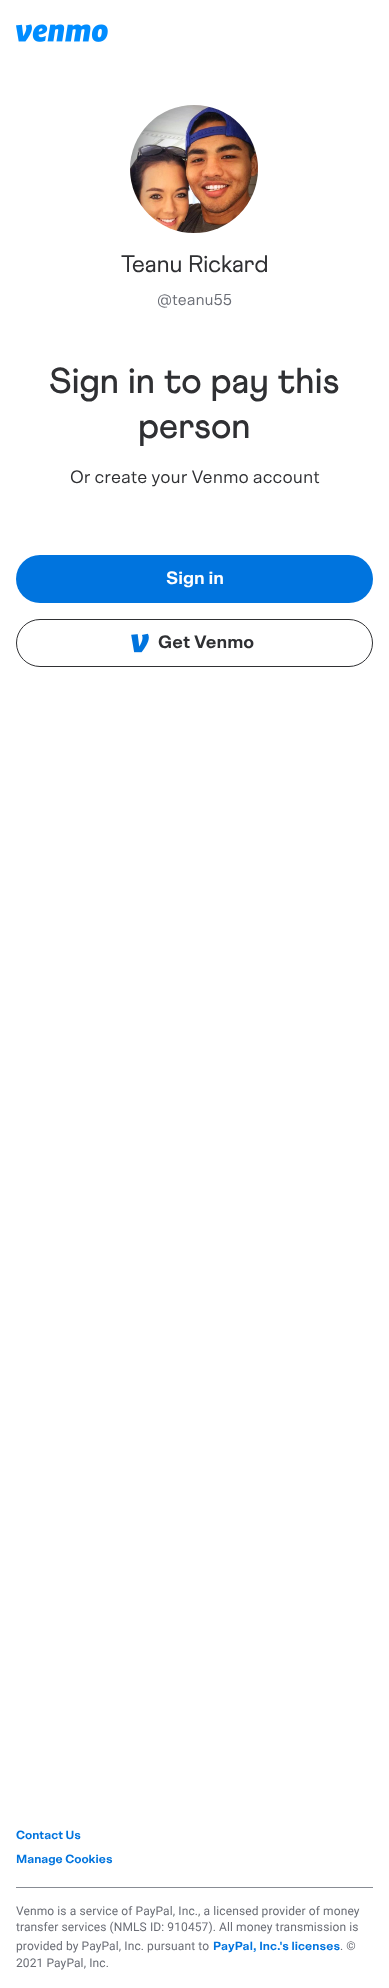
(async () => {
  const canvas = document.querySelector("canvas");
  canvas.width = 389;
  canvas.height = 1988;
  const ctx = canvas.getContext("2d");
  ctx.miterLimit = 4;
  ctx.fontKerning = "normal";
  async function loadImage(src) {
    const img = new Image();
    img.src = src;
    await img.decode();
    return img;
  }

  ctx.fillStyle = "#ffffff";
  ctx.fillRect(0, 0, 389, 1988);
  ctx.drawImage(await loadImage("img/1.png"), 16, 24, 92, 18);
  ctx.drawImage(await loadImage("img/2.png"), 130, 105, 128, 128);
  ctx.fillStyle = "#0074de";
  ctx.beginPath();
  ctx.roundRect(16, 555, 357, 48, 24);
  ctx.fill();
  ctx.beginPath();
  ctx.roundRect(16.5, 619.5, 356, 47, 23.5);
  ctx.strokeStyle = "#2f3033";
  ctx.stroke();
  ctx.drawImage(await loadImage("img/3.png"), 131, 633, 18, 20);
  ctx.fillStyle = "#888c94";
  ctx.fillRect(16, 1887, 357, 1);
  ctx.font = "24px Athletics";
  ctx.fillStyle = "#2f3033";
  ctx.fillText("Teanu Rickard", 121, 272);
  ctx.font = "16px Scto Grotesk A";
  ctx.fillStyle = "#6b6e76";
  ctx.fillText("@teanu55", 157, 305);
  ctx.font = "500 36px Athletics";
  ctx.fillStyle = "#2f3033";
  ctx.fillText("Sign in to pay this", 49, 393);
  ctx.fillText("person", 138, 438);
  ctx.font = "18px Scto Grotesk A";
  ctx.fillText("Or create your Venmo account", 70, 483);
  ctx.font = "bold 18px Scto Grotesk A";
  ctx.fillStyle = "#ffffff";
  ctx.fillText("Sign in", 166, 584);
  ctx.fillStyle = "#2f3033";
  ctx.fillText("Get Venmo", 158, 648);
  ctx.font = "bold 12px Scto Grotesk A";
  ctx.fillStyle = "#0074de";
  ctx.fillText("Contact Us", 16, 1839);
  ctx.fillText("Manage Cookies", 16, 1863);
  ctx.letterSpacing = "0.1px";
  ctx.font = "12px Roboto";
  ctx.fillStyle = "#6b6e76";
  for (const [text, x, y] of [
    ["Venmo is a service of PayPal, Inc., a licensed provider of money", 16, 1915],
    ["transfer services (NMLS ID: 910457). All money transmission is", 16, 1931],
    ["provided by PayPal, Inc. pursuant to", 16, 1950],
  ]) {
    ctx.fillText(text, x, y);
  }
  ctx.font = "bold 12px Scto Grotesk A";
  ctx.fillStyle = "#0074de";
  ctx.fillText("PayPal, Inc.'s licenses", 213, 1950);
  ctx.font = "12px Roboto";
  ctx.fillStyle = "#6b6e76";
  ctx.fillText(". ©", 340, 1950);
  ctx.fillText("2021 PayPal, Inc.", 16, 1967);
})();
